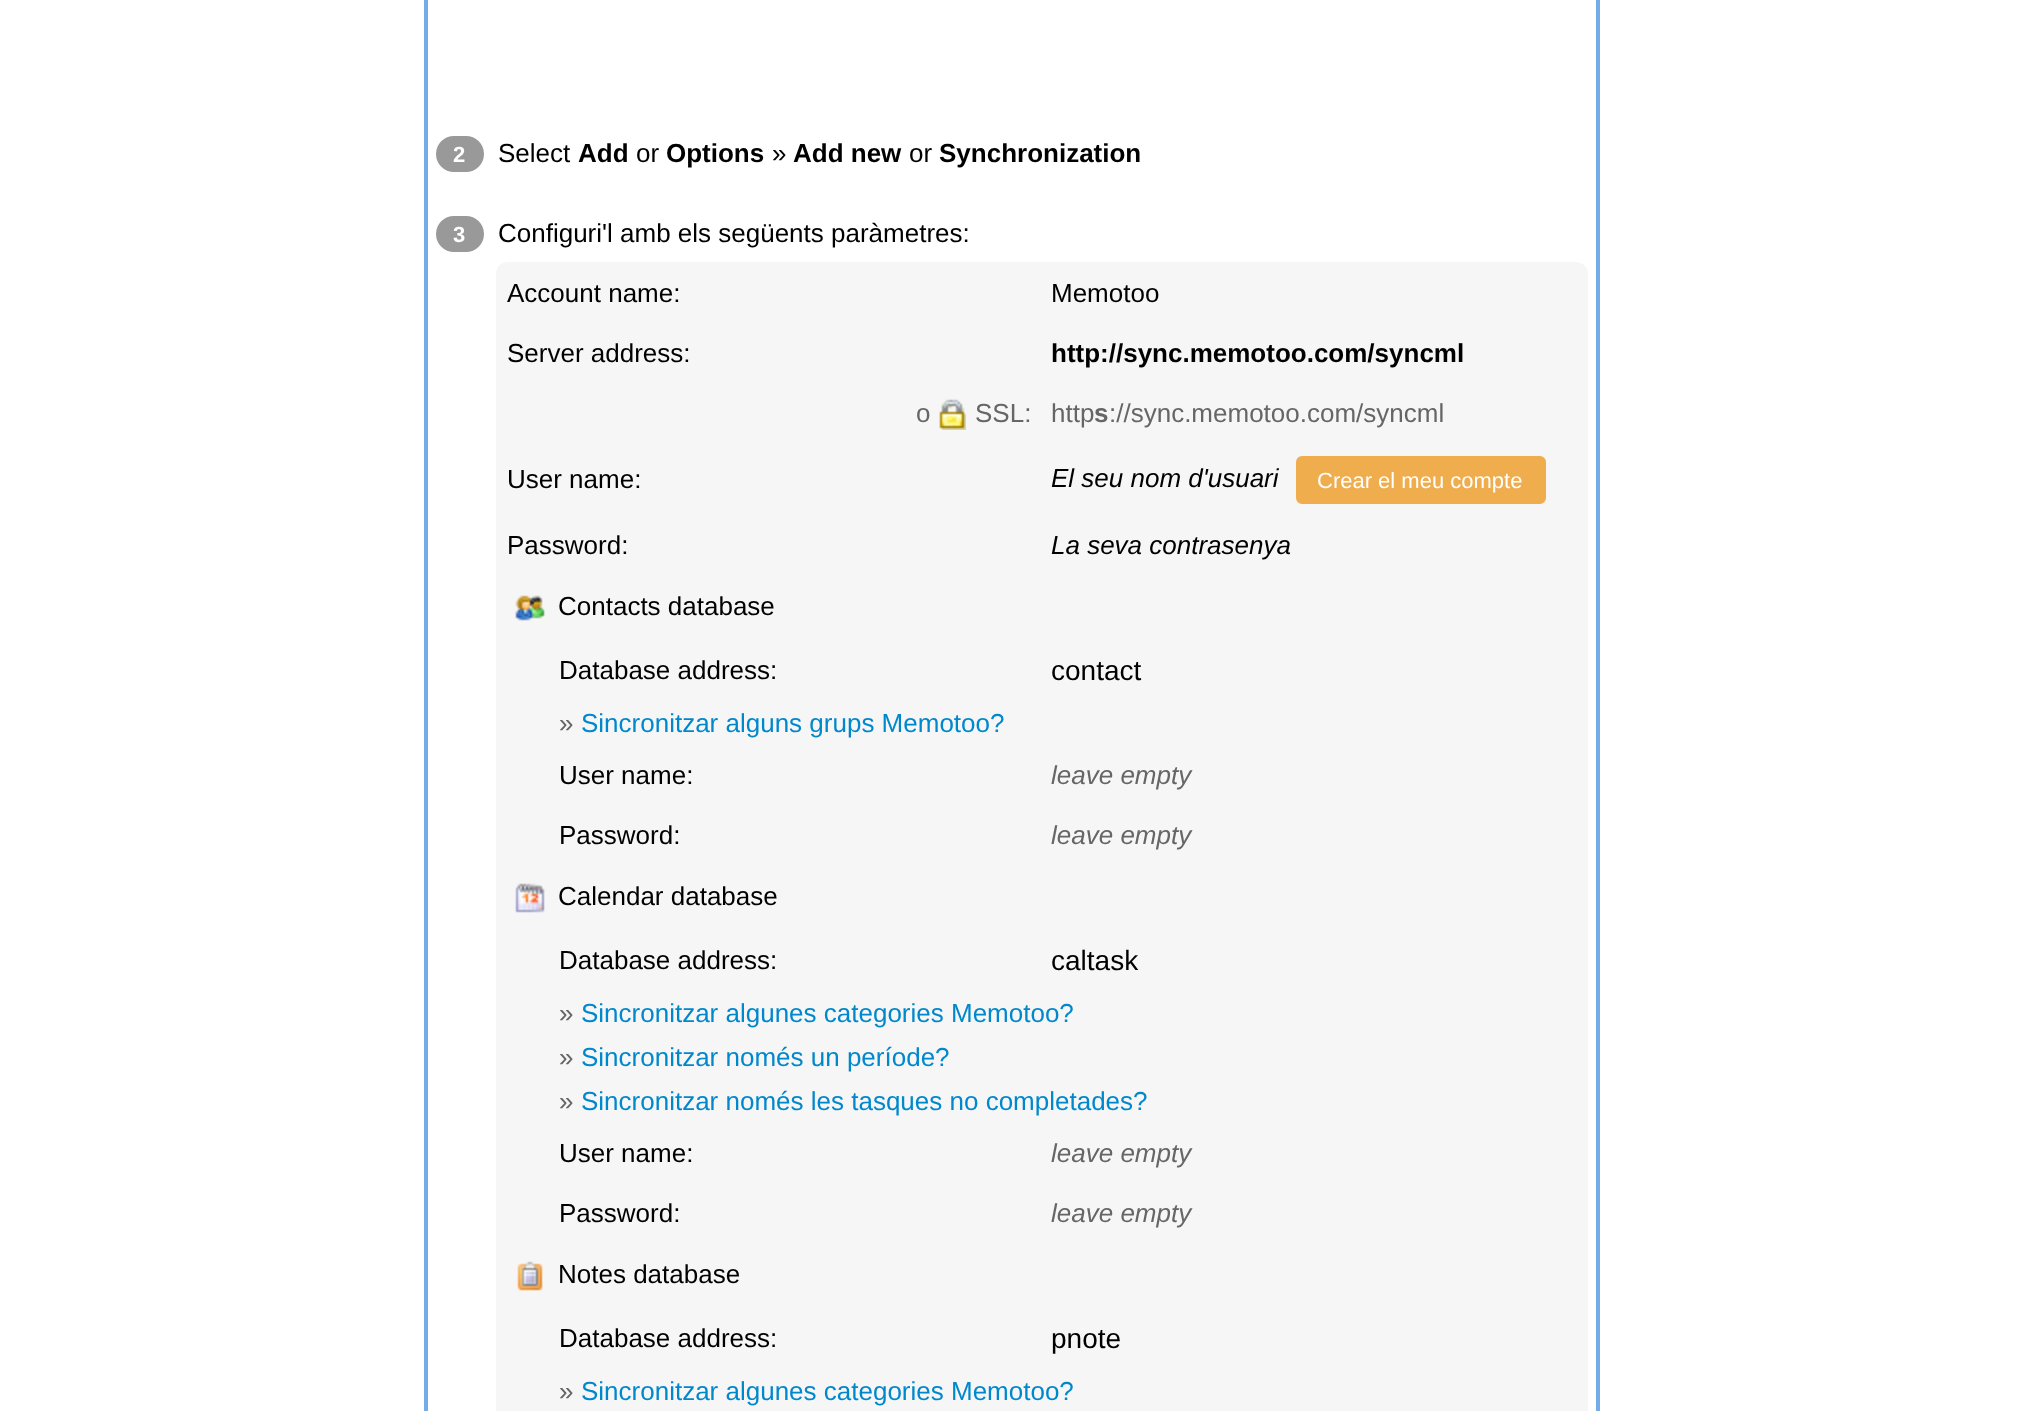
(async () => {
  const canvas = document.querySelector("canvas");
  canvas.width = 2022;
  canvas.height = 1411;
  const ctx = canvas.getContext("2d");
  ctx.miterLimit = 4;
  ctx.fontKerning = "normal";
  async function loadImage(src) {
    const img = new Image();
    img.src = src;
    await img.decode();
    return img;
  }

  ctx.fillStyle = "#ffffff";
  ctx.fillRect(0, 0, 2022, 1411);
  ctx.strokeStyle = "#73ace6";
  ctx.lineWidth = 4;
  ctx.strokeRect(426, -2, 1172, 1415);
  ctx.fillStyle = "#999999";
  ctx.beginPath();
  ctx.roundRect(436, 136, 48, 36, 18);
  ctx.fill();
  ctx.beginPath();
  ctx.roundRect(436, 216, 48, 36, 18);
  ctx.fill();
  ctx.fillStyle = "#f6f6f6";
  ctx.beginPath();
  ctx.roundRect(496, 262, 1092, 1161, 12);
  ctx.fill();
  ctx.drawImage(await loadImage("img/1.png"), 939, 399, 27, 31);
  ctx.fillStyle = "#f0ad4e";
  ctx.beginPath();
  ctx.roundRect(1297, 457, 248, 46, 5);
  ctx.fill();
  ctx.strokeStyle = "#f0ad4e";
  ctx.lineWidth = 2;
  ctx.stroke();
  ctx.drawImage(await loadImage("img/2.png"), 515, 595, 30, 26);
  ctx.drawImage(await loadImage("img/3.png"), 515, 883, 30, 30);
  ctx.drawImage(await loadImage("img/4.png"), 517, 1261, 26, 30);
  ctx.font = "bold 22px Liberation Sans";
  ctx.fillStyle = "#ffffff";
  ctx.fillText("2", 453, 162);
  ctx.font = "26px Liberation Sans";
  ctx.fillStyle = "#000000";
  ctx.fillText("Select", 498, 162);
  ctx.font = "bold 26px Liberation Sans";
  ctx.fillText("Add", 578, 162);
  ctx.font = "26px Liberation Sans";
  ctx.fillText("or", 636, 162);
  ctx.font = "bold 26px Liberation Sans";
  ctx.fillText("Options", 666, 162);
  ctx.font = "26px Liberation Sans";
  ctx.fillText("»", 772, 162);
  ctx.font = "bold 26px Liberation Sans";
  ctx.fillText("Add new", 793, 162);
  ctx.font = "26px Liberation Sans";
  ctx.fillText("or", 909, 162);
  ctx.font = "bold 26px Liberation Sans";
  ctx.fillText("Synchronization", 939, 162);
  ctx.font = "bold 22px Liberation Sans";
  ctx.fillStyle = "#ffffff";
  ctx.fillText("3", 453, 242);
  ctx.font = "26px Liberation Sans";
  ctx.fillStyle = "#000000";
  for (const [text, x, y] of [
    ["Configuri'l amb els següents paràmetres:", 498, 242],
    ["Account name:", 507, 302],
    ["Memotoo", 1051, 302],
    ["Server address:", 507, 362],
  ]) {
    ctx.fillText(text, x, y);
  }
  ctx.font = "bold 26px Liberation Sans";
  ctx.fillText("http://sync.memotoo.com/syncml", 1051, 362);
  ctx.font = "26px Liberation Sans";
  ctx.fillStyle = "#666666";
  for (const [text, x, y] of [
    ["o", 916, 422],
    ["SSL:", 975, 422],
    ["http", 1051, 422],
  ]) {
    ctx.fillText(text, x, y);
  }
  ctx.font = "bold 26px Liberation Sans";
  ctx.fillText("s", 1094, 422);
  ctx.font = "26px Liberation Sans";
  ctx.fillText("://sync.memotoo.com/syncml", 1109, 422);
  ctx.fillStyle = "#000000";
  ctx.fillText("User name:", 507, 488);
  ctx.font = "italic 26px Liberation Sans";
  ctx.fillText("El seu nom d'usuari", 1051, 487);
  ctx.font = "22px Liberation Sans";
  ctx.fillStyle = "#ffffff";
  ctx.fillText("Crear el meu compte", 1317, 488);
  ctx.font = "26px Liberation Sans";
  ctx.fillStyle = "#000000";
  ctx.fillText("Password:", 507, 554);
  ctx.font = "italic 26px Liberation Sans";
  ctx.fillText("La seva contrasenya", 1051, 554);
  ctx.font = "26px Liberation Sans";
  ctx.fillText("Contacts database", 558, 615);
  ctx.fillText("Database address:", 559, 679);
  ctx.font = "28px Liberation Sans";
  ctx.fillText("contact", 1051, 680);
  ctx.font = "26px Liberation Sans";
  ctx.fillStyle = "#666666";
  ctx.fillText("»", 559, 732);
  ctx.fillStyle = "#0088cc";
  ctx.fillText("Sincronitzar alguns grups Memotoo?", 581, 732);
  ctx.fillStyle = "#000000";
  ctx.fillText("User name:", 559, 784);
  ctx.font = "italic 26px Liberation Sans";
  ctx.fillStyle = "#666666";
  ctx.fillText("leave empty", 1051, 784);
  ctx.font = "26px Liberation Sans";
  ctx.fillStyle = "#000000";
  ctx.fillText("Password:", 559, 844);
  ctx.font = "italic 26px Liberation Sans";
  ctx.fillStyle = "#666666";
  ctx.fillText("leave empty", 1051, 844);
  ctx.font = "26px Liberation Sans";
  ctx.fillStyle = "#000000";
  ctx.fillText("Calendar database", 558, 905);
  ctx.fillText("Database address:", 559, 969);
  ctx.font = "28px Liberation Sans";
  ctx.fillText("caltask", 1051, 970);
  ctx.font = "26px Liberation Sans";
  ctx.fillStyle = "#666666";
  ctx.fillText("»", 559, 1022);
  ctx.fillStyle = "#0088cc";
  ctx.fillText("Sincronitzar algunes categories Memotoo?", 581, 1022);
  ctx.fillStyle = "#666666";
  ctx.fillText("»", 559, 1066);
  ctx.fillStyle = "#0088cc";
  ctx.fillText("Sincronitzar només un període?", 581, 1066);
  ctx.fillStyle = "#666666";
  ctx.fillText("»", 559, 1110);
  ctx.fillStyle = "#0088cc";
  ctx.fillText("Sincronitzar només les tasques no completades?", 581, 1110);
  ctx.fillStyle = "#000000";
  ctx.fillText("User name:", 559, 1162);
  ctx.font = "italic 26px Liberation Sans";
  ctx.fillStyle = "#666666";
  ctx.fillText("leave empty", 1051, 1162);
  ctx.font = "26px Liberation Sans";
  ctx.fillStyle = "#000000";
  ctx.fillText("Password:", 559, 1222);
  ctx.font = "italic 26px Liberation Sans";
  ctx.fillStyle = "#666666";
  ctx.fillText("leave empty", 1051, 1222);
  ctx.font = "26px Liberation Sans";
  ctx.fillStyle = "#000000";
  ctx.fillText("Notes database", 558, 1283);
  ctx.fillText("Database address:", 559, 1347);
  ctx.font = "28px Liberation Sans";
  ctx.fillText("pnote", 1051, 1348);
  ctx.font = "26px Liberation Sans";
  ctx.fillStyle = "#666666";
  ctx.fillText("»", 559, 1400);
  ctx.fillStyle = "#0088cc";
  ctx.fillText("Sincronitzar algunes categories Memotoo?", 581, 1400);
})();
